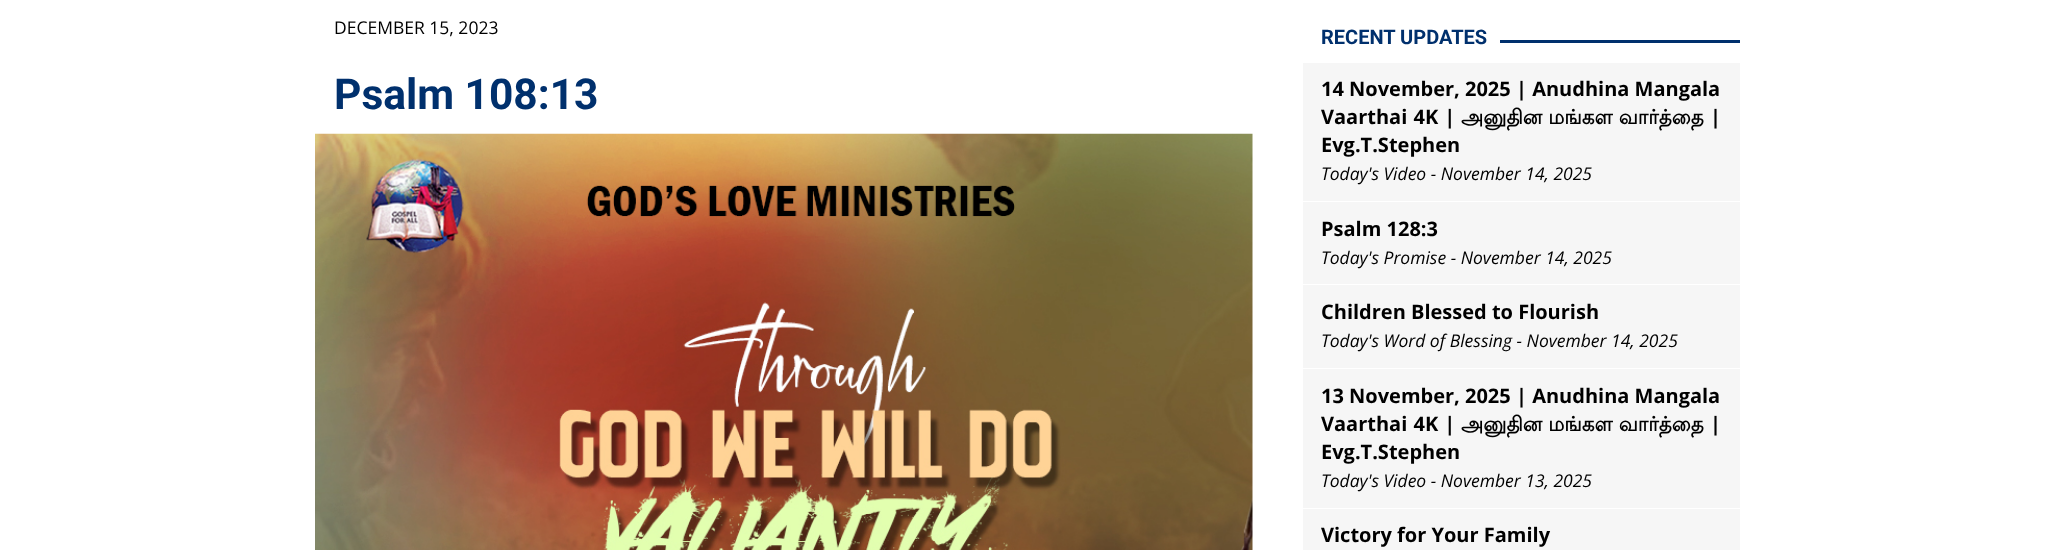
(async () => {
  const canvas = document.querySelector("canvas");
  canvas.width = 2054;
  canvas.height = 550;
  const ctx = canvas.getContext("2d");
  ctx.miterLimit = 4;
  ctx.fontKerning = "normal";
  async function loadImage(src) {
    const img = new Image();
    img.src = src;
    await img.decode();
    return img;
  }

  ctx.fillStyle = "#ffffff";
  ctx.fillRect(0, 0, 2054, 550);
  ctx.drawImage(await loadImage("img/1.png"), 315, 133, 938, 417);
  for (const [x, y, w, h, color] of [
    [1500, 40, 240, 3, "#00306d"],
    [1303, 63, 437, 487, "#f6f6f6"],
    [1303, 201, 437, 1, "#ffffff"],
    [1303, 284, 437, 1, "#ffffff"],
    [1303, 368, 437, 1, "#ffffff"],
    [1303, 508, 437, 1, "#ffffff"],
  ]) {
    ctx.fillStyle = color;
    ctx.fillRect(x, y, w, h);
  }
  ctx.font = "17.5px Open Sans";
  ctx.fillStyle = "#000000";
  ctx.fillText("DECEMBER 15, 2023", 334, 34);
  ctx.font = "bold 42.5px Roboto";
  ctx.fillStyle = "#00306d";
  ctx.fillText("Psalm 108:13", 334, 109);
  ctx.font = "bold 20px Roboto";
  ctx.fillText("RECENT UPDATES", 1321, 44);
  ctx.font = "bold 20px Open Sans";
  ctx.fillStyle = "#000000";
  ctx.fillText("14 November, 2025 | Anudhina Mangala", 1321, 96);
  ctx.wordSpacing = "1px";
  ctx.fillText("Vaarthai 4K |", 1321, 124);
  ctx.wordSpacing = "0px";
  ctx.font = "bold 20px Lohit Tamil";
  ctx.fillText("அனுதின மங்கள வார்த்தை", 1461, 124);
  ctx.font = "bold 20px Open Sans";
  ctx.fillText("|", 1710, 124);
  ctx.fillText("Evg.T.Stephen", 1321, 152);
  ctx.font = "italic 17.5px Open Sans";
  ctx.fillText("Today's Video - November 14, 2025", 1321, 180);
  ctx.font = "bold 20px Open Sans";
  ctx.fillText("Psalm 128:3", 1321, 236);
  ctx.font = "italic 17.5px Open Sans";
  ctx.fillText("Today's Promise - November 14, 2025", 1321, 264);
  ctx.font = "bold 20px Open Sans";
  ctx.fillText("Children Blessed to Flourish", 1321, 319);
  ctx.font = "italic 17.5px Open Sans";
  ctx.fillText("Today's Word of Blessing - November 14, 2025", 1321, 347);
  ctx.font = "bold 20px Open Sans";
  ctx.fillText("13 November, 2025 | Anudhina Mangala", 1321, 403);
  ctx.wordSpacing = "1px";
  ctx.fillText("Vaarthai 4K |", 1321, 431);
  ctx.wordSpacing = "0px";
  ctx.font = "bold 20px Lohit Tamil";
  ctx.fillText("அனுதின மங்கள வார்த்தை", 1461, 431);
  ctx.font = "bold 20px Open Sans";
  ctx.fillText("|", 1710, 431);
  ctx.fillText("Evg.T.Stephen", 1321, 459);
  ctx.font = "italic 17.5px Open Sans";
  ctx.fillText("Today's Video - November 13, 2025", 1321, 487);
  ctx.font = "bold 20px Open Sans";
  ctx.fillText("Victory for Your Family", 1321, 542);
})();
